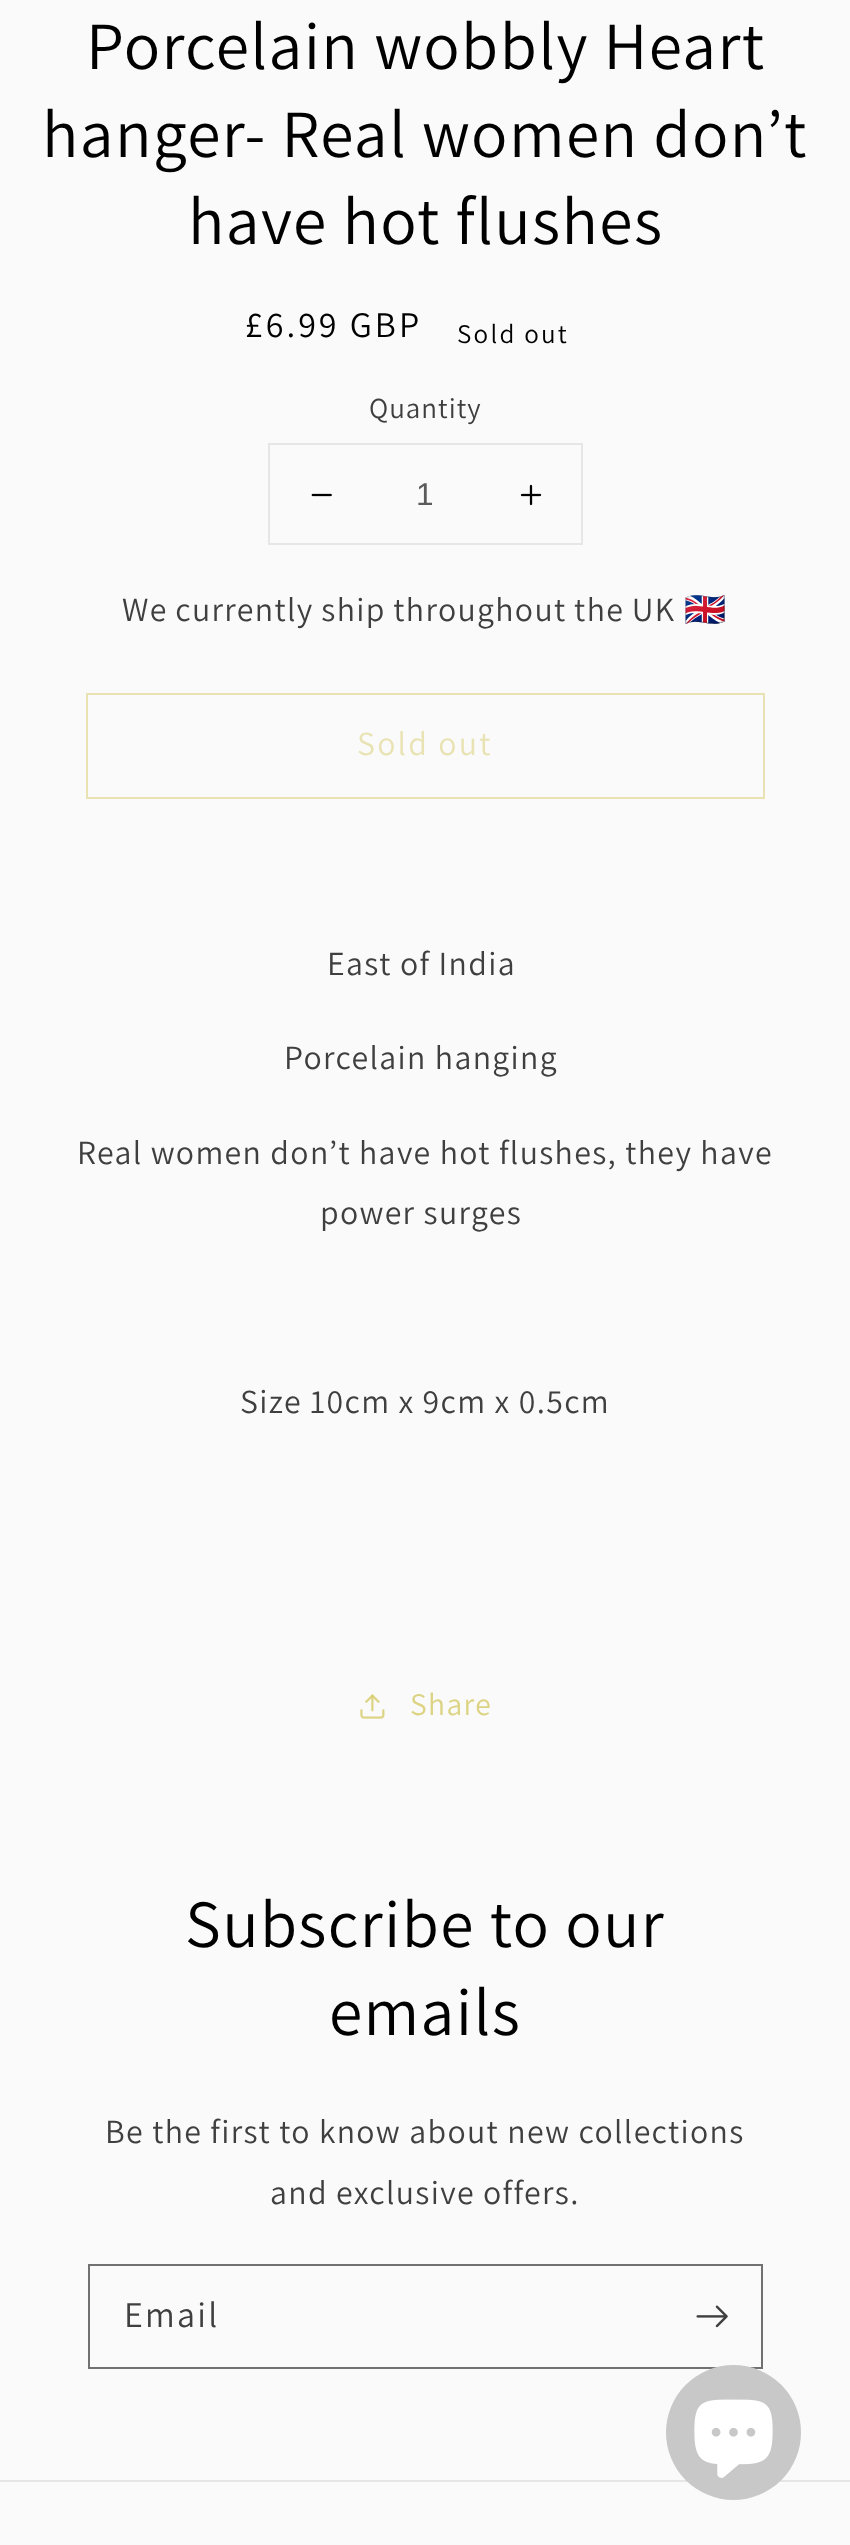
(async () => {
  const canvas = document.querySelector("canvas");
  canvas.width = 850;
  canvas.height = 2545;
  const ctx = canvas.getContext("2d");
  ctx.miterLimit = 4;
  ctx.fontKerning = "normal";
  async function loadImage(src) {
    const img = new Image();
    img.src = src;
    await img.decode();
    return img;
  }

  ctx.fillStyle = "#fafafa";
  ctx.fillRect(0, 0, 850, 2545);
  ctx.strokeStyle = "#e6e6e6";
  ctx.lineWidth = 2;
  ctx.strokeRect(269, 444, 313, 100);
  ctx.drawImage(await loadImage("img/1.png"), 311, 493, 21, 4);
  ctx.drawImage(await loadImage("img/2.png"), 520, 484, 22, 22);
  ctx.strokeStyle = "#e9e3b4";
  ctx.strokeRect(87, 694, 677, 104);
  ctx.drawImage(await loadImage("img/3.png"), 360, 1694, 25, 25);
  ctx.strokeStyle = "#717171";
  ctx.strokeRect(89, 2265, 673, 103);
  ctx.drawImage(await loadImage("img/4.png"), 696, 2305, 32, 23);
  ctx.fillStyle = "#e6e6e6";
  ctx.fillRect(0, 2480, 850, 2);
  ctx.fillStyle = "#c8c8c8";
  ctx.beginPath();
  ctx.arc(733.5, 2432.5, 67.5, 0, Math.PI * 2);
  ctx.fill();
  ctx.drawImage(await loadImage("img/5.png"), 694, 2399, 79, 79);
  ctx.letterSpacing = "1.35px";
  ctx.font = "67.5px Assistant";
  ctx.fillStyle = "#000000";
  for (const [text, x, y] of [
    ["Porcelain wobbly Heart", 86, 69],
    ["hanger- Real women don’t", 42, 157],
    ["have hot flushes", 188, 244],
  ]) {
    ctx.fillText(text, x, y);
  }
  ctx.letterSpacing = "3px";
  ctx.font = "36px Assistant";
  ctx.fillText("£6.99 GBP", 245, 337);
  ctx.letterSpacing = "2.25px";
  ctx.font = "27px Assistant";
  ctx.fillText("Sold out", 457, 343);
  ctx.letterSpacing = "1px";
  ctx.font = "29px Assistant";
  ctx.fillStyle = "#3f3f3f";
  ctx.fillText("Quantity", 369, 418);
  ctx.letterSpacing = "0px";
  ctx.font = "31.5px Liberation Sans";
  ctx.fillStyle = "#5b5b5b";
  ctx.fillText("1", 416, 505);
  ctx.letterSpacing = "1.35px";
  ctx.wordSpacing = "-0.5px";
  ctx.font = "33.75px Assistant";
  ctx.fillStyle = "#3f3f3f";
  ctx.fillText("We currently ship throughout the UK", 122, 621);
  ctx.wordSpacing = "0px";
  ctx.font = "33.75px Noto Color Emoji";
  ctx.fillText("🇬🇧", 684, 621);
  ctx.letterSpacing = "2.25px";
  ctx.font = "33.75px Assistant";
  ctx.fillStyle = "#e9e3b4";
  ctx.fillText("Sold out", 357, 755);
  ctx.letterSpacing = "1.35px";
  ctx.fillStyle = "#3f3f3f";
  for (const [text, x, y] of [
    ["East of India", 327, 975],
    ["Porcelain hanging", 284, 1069],
    ["Real women don’t have hot flushes, they have", 77, 1164],
    ["power surges", 320, 1224],
    ["Size 10cm x 9cm x 0.5cm", 240, 1413],
  ]) {
    ctx.fillText(text, x, y);
  }
  ctx.font = "31.5px Assistant";
  ctx.fillStyle = "#dcd383";
  ctx.fillText("Share", 410, 1715);
  ctx.font = "67.5px Assistant";
  ctx.fillStyle = "#000000";
  ctx.fillText("Subscribe to our", 185, 1947);
  ctx.fillText("emails", 329, 2035);
  ctx.font = "33.75px Assistant";
  ctx.fillStyle = "#3f3f3f";
  ctx.fillText("Be the first to know about new collections", 105, 2143);
  ctx.fillText("and exclusive offers.", 270, 2204);
  ctx.letterSpacing = "2.25px";
  ctx.font = "36px Assistant";
  ctx.fillText("Email", 124, 2327);
})();
